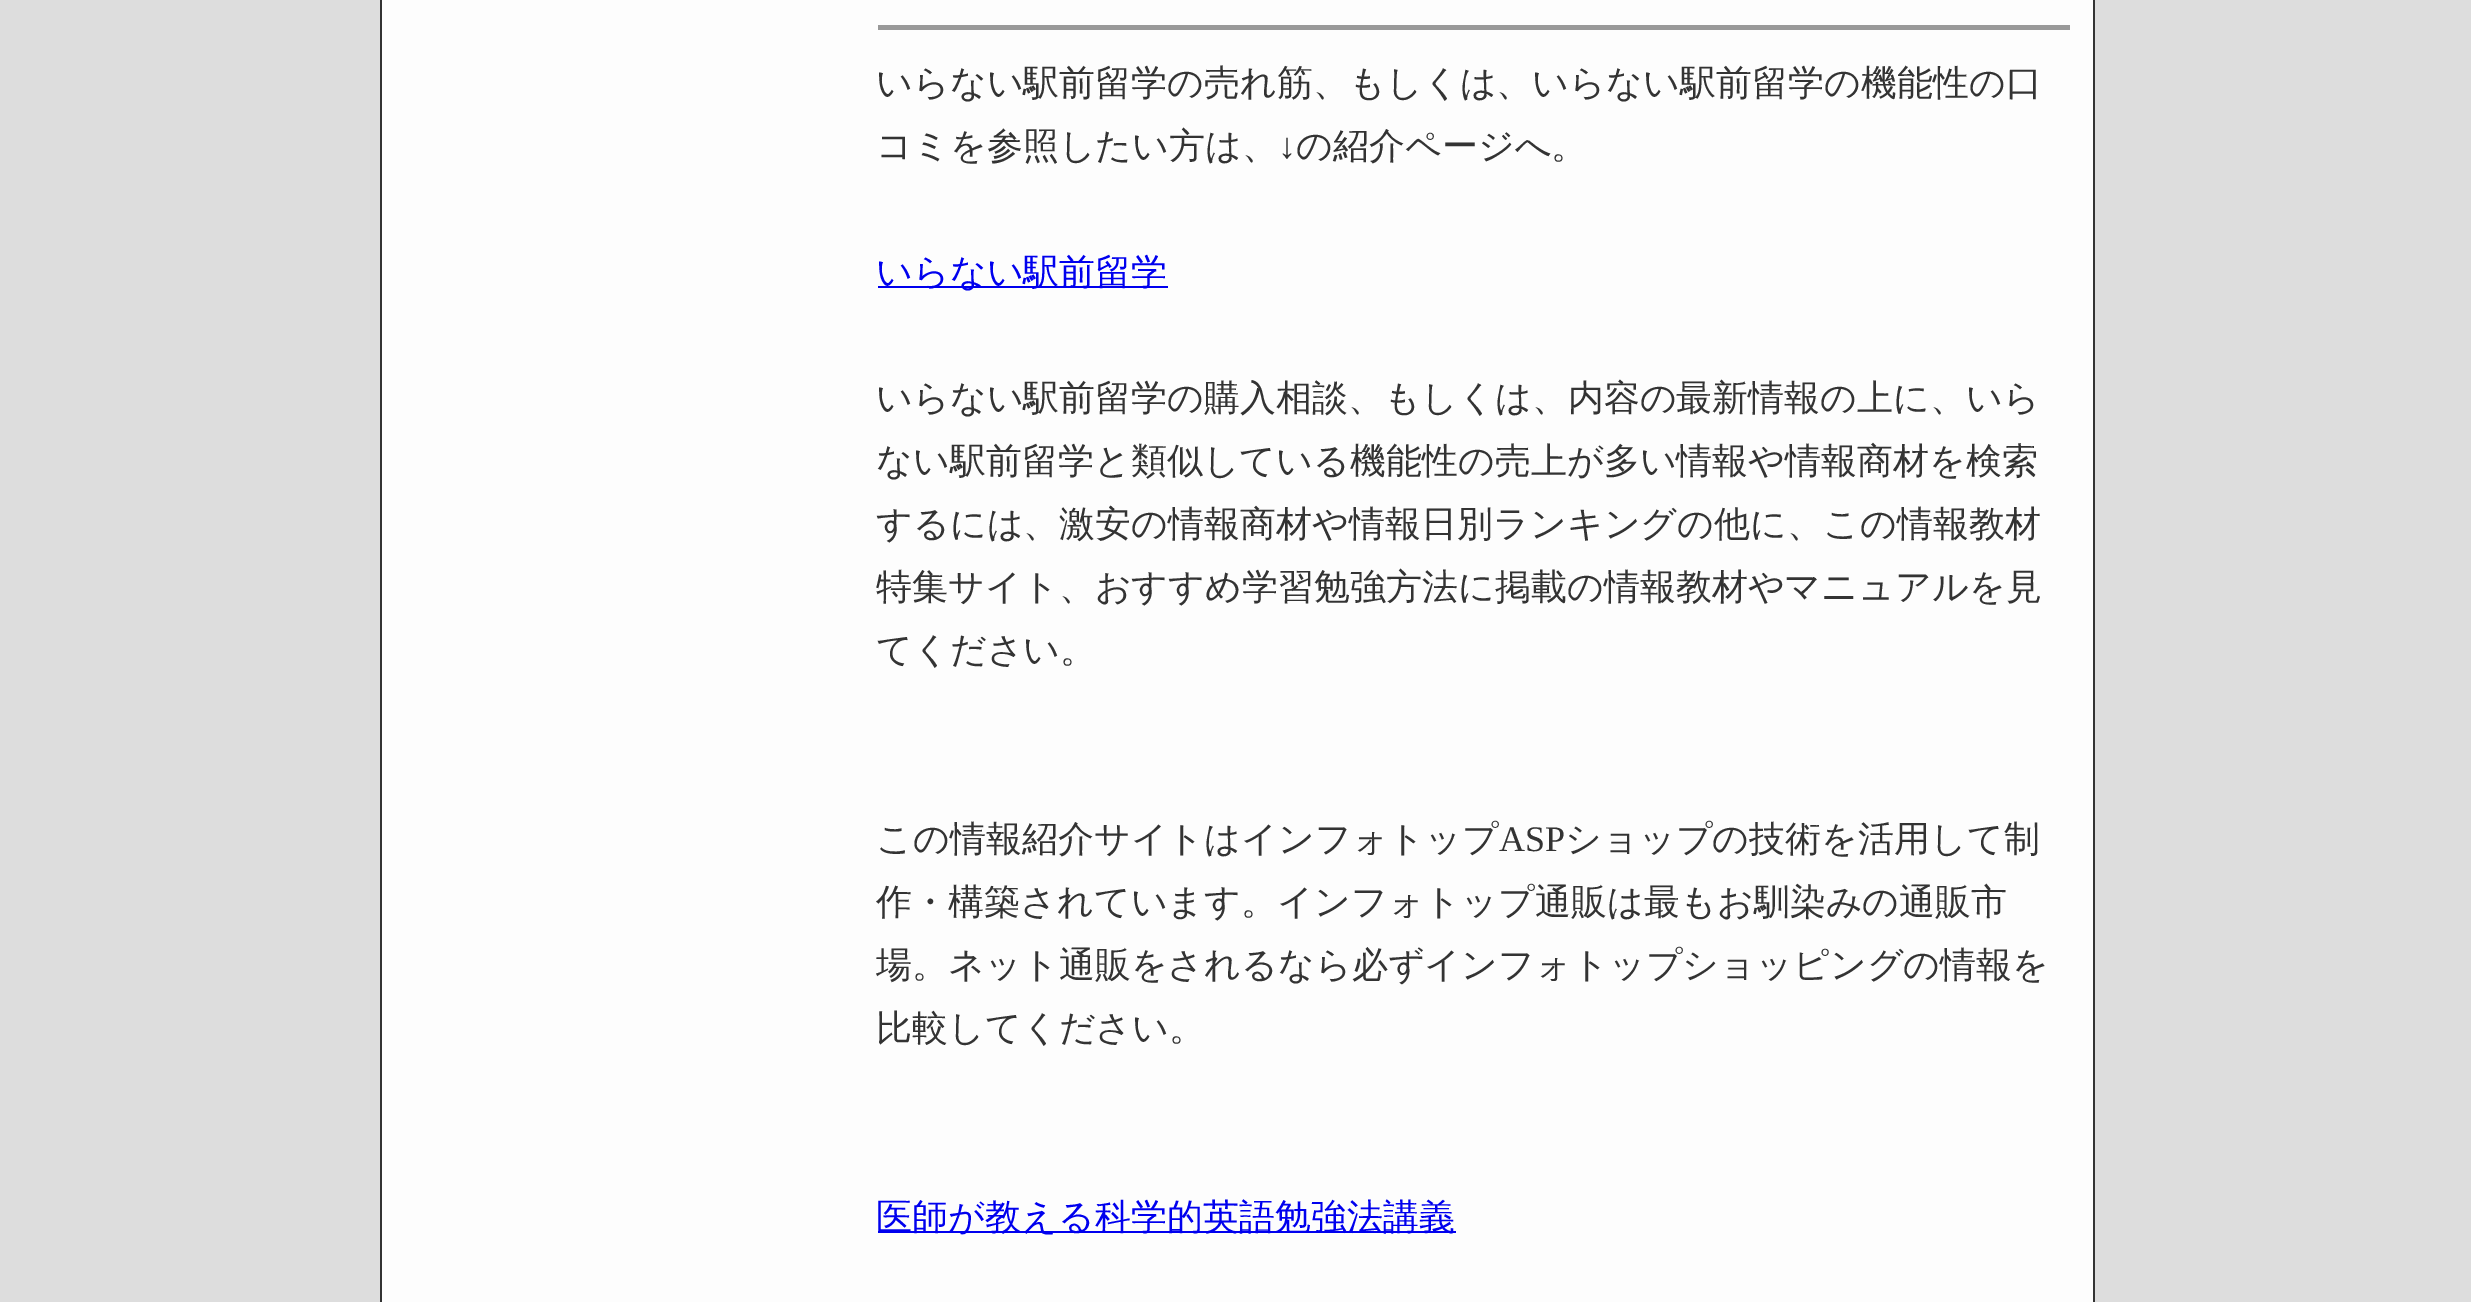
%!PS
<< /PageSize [2471 1302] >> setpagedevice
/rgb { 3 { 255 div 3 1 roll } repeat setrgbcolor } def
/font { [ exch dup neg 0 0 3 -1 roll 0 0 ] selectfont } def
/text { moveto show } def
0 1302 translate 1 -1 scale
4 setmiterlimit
221 221 221 rgb
0 0 2471 1302 rectfill
253 253 253 rgb
382 0 1711 1302 rectfill
51 51 51 rgb
2093 0 2 1302 rectfill
380 0 2 1302 rectfill
153 153 153 rgb
878 25 1192 5 rectfill
0 0 238 rgb
878 286 290 2 rectfill
878 1231 578 2 rectfill
/WenQuanYiZenHei-Medium 36 font
51 51 51 rgb
(いらない駅前留学の売れ筋、もしくは、いらない駅前留学の機能性の口) 876 95 text
(コミを参照したい方は、) 876 158 text
/LiberationSerif-Regular 36 font
(↓) 1278 158 text
/WenQuanYiZenHei-Medium 36 font
(の紹介ページへ。) 1296 158 text
0 0 238 rgb
(いらない駅前留学) 876 284 text
51 51 51 rgb
(いらない駅前留学の購入相談、もしくは、内容の最新情報の上に、いら) 876 410 text
(ない駅前留学と類似している機能性の売上が多い情報や情報商材を検索) 876 473 text
(するには、激安の情報商材や情報日別ランキングの他に、この情報教材) 876 536 text
(特集サイト、おすすめ学習勉強方法に掲載の情報教材やマニュアルを見) 876 599 text
(てください。) 876 662 text
(この情報紹介サイトはインフォトップ) 876 851 text
/LiberationSerif-Regular 36 font
(ASP) 1499 851 text
/WenQuanYiZenHei-Medium 36 font
(ショップの技術を活用して制) 1565 851 text
(作・構築されています。インフォトップ通販は最もお馴染みの通販市) 876 914 text
(場。ネット通販をされるなら必ずインフォトップショッピングの情報を) 876 977 text
(比較してください。) 876 1040 text
0 0 238 rgb
(医師が教える科学的英語勉強法講義) 876 1229 text
showpage
